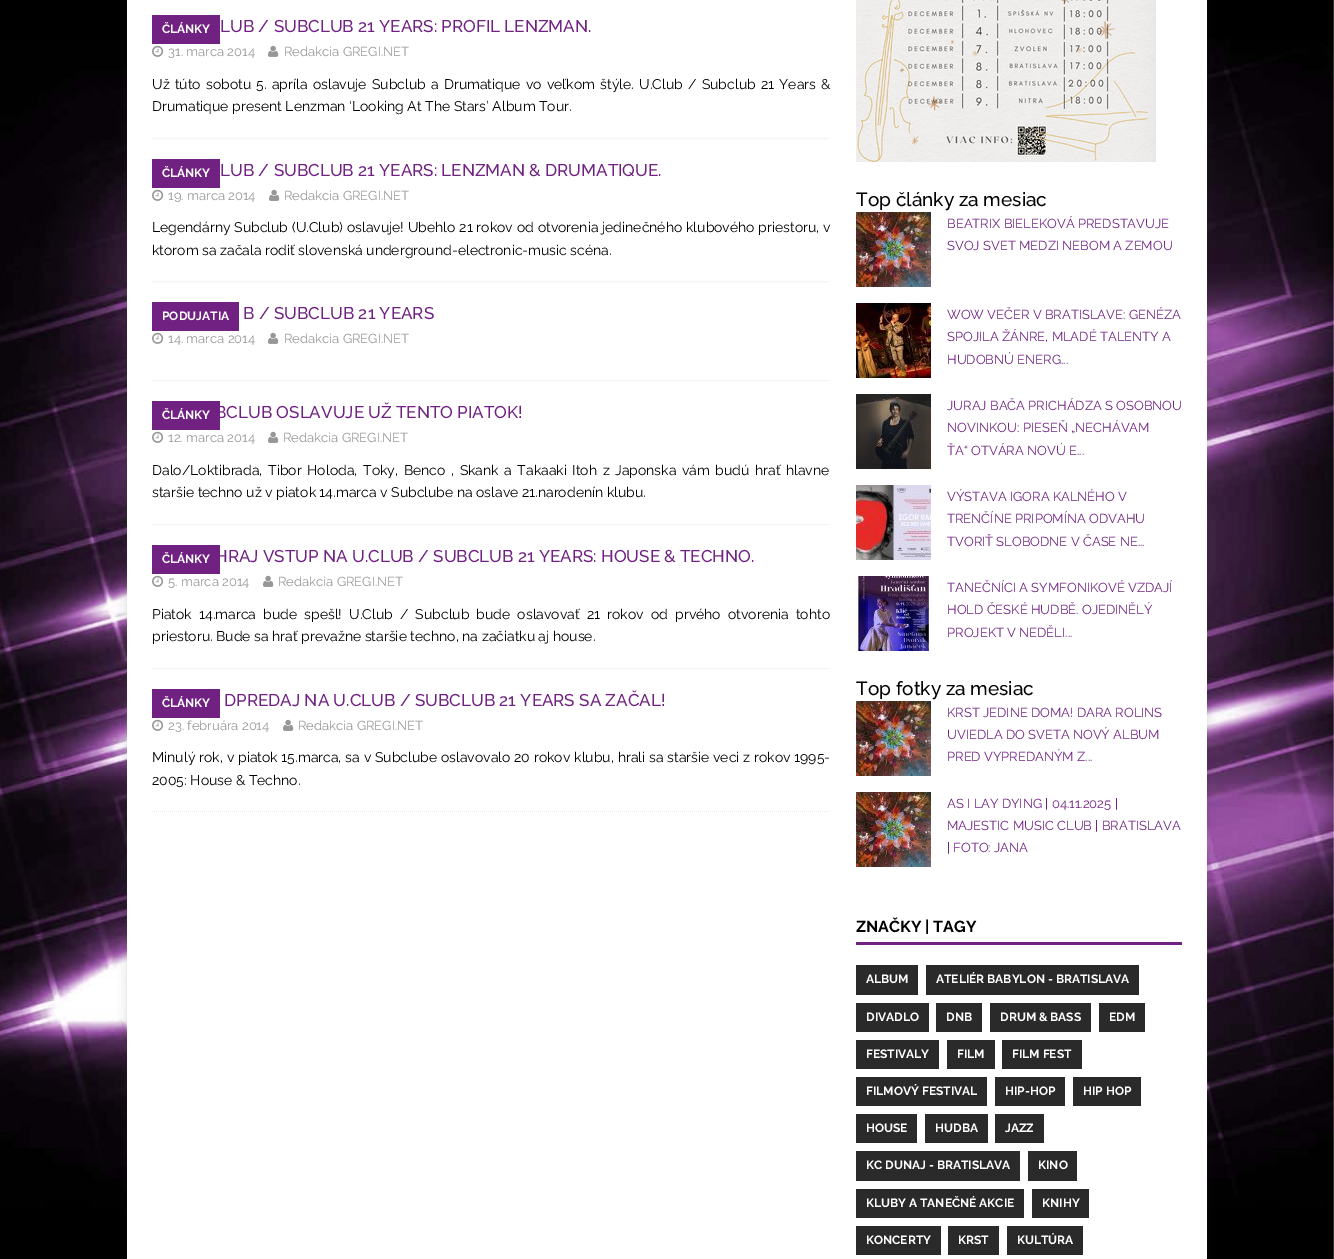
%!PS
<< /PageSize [1334 1259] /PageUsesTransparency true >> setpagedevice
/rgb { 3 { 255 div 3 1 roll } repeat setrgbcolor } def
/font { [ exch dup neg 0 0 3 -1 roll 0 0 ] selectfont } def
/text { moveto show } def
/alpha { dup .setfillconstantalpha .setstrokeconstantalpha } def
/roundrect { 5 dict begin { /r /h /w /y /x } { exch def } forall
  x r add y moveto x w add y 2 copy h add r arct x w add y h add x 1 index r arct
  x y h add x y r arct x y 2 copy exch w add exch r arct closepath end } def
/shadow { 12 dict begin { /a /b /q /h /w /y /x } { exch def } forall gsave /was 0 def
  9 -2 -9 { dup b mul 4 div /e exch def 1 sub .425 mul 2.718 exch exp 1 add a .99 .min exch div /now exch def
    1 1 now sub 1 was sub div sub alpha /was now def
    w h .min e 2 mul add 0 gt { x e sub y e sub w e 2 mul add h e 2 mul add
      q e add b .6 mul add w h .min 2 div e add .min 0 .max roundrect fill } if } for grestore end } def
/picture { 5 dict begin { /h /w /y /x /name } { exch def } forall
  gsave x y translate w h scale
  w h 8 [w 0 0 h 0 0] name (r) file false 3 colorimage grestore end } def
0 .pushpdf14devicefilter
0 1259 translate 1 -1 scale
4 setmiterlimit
255 255 255 rgb
0 0 1334 1259 rectfill
(img_01.rgb) 0 0 1334 1259 picture
50 50 50 rgb
127 -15 1080 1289 0 5 0.17 shadow
255 255 255 rgb
127 0 1080 1259 rectfill
235 235 235 rgb
[1 1] 0 setdash
152 138.5 moveto 678 0 rlineto stroke
(img_02.rgb) 152 45 12 12 picture
(img_03.rgb) 268 45 11 12 picture
112 33 129 rgb
152 15 68 29 rectfill
235 235 235 rgb
152 281.5 moveto 678 0 rlineto stroke
(img_02.rgb) 152 189 12 12 picture
(img_03.rgb) 269 189 11 12 picture
112 33 129 rgb
152 159 68 29 rectfill
235 235 235 rgb
152 380.5 moveto 678 0 rlineto stroke
(img_02.rgb) 152 332 12 12 picture
(img_03.rgb) 268 332 11 12 picture
112 33 129 rgb
152 302 87 29 rectfill
235 235 235 rgb
152 524.5 moveto 678 0 rlineto stroke
(img_02.rgb) 152 431 12 12 picture
(img_03.rgb) 268 431 11 12 picture
112 33 129 rgb
152 401 68 29 rectfill
235 235 235 rgb
152 668.5 moveto 678 0 rlineto stroke
(img_02.rgb) 152 575 12 12 picture
(img_03.rgb) 263 575 11 12 picture
112 33 129 rgb
152 545 68 29 rectfill
235 235 235 rgb
152 811.5 moveto 678 0 rlineto stroke
(img_02.rgb) 152 719 12 12 picture
(img_03.rgb) 283 719 11 12 picture
112 33 129 rgb
152 689 68 29 rectfill
(img_04.rgb) 856 0 300 162 picture
(img_05.rgb) 856 212 75 75 picture
(img_06.rgb) 856 303 75 75 picture
(img_07.rgb) 856 394 75 75 picture
(img_08.rgb) 856 485 75 75 picture
(img_09.rgb) 856 576 75 75 picture
(img_05.rgb) 856 701 75 75 picture
(img_05.rgb) 856 792 75 75 picture
856 942 326 3 rectfill
42 42 42 rgb
856 965 62 30 rectfill
926 965 213 30 rectfill
856 1003 73 29 rectfill
936 1003 46 29 rectfill
990 1003 101 29 rectfill
1099 1003 46 29 rectfill
856 1040 83 29 rectfill
947 1040 48 29 rectfill
1002 1040 80 29 rectfill
856 1077 131 29 rectfill
995 1077 70 29 rectfill
1073 1077 68 29 rectfill
856 1114 61 29 rectfill
925 1114 63 29 rectfill
995 1114 49 29 rectfill
856 1151 164 30 rectfill
1028 1151 49 30 rectfill
856 1189 168 29 rectfill
1032 1189 57 29 rectfill
856 1226 85 29 rectfill
948 1226 51 29 rectfill
1007 1226 76 29 rectfill
/Raleway-Medium 17 font
112 33 129 rgb
(LUB / SUBCLUB 21 YEARS: PROFIL LENZMAN.) 220 32 text
/Raleway-Regular 13 font
151 151 151 rgb
(31. marca 2014) 168 56 text
(Redakcia GREGI.NET) 284 56 text
/Raleway-Regular 14 font
0 0 0 rgb
152 89 moveto 1.7 0 32 (Už túto sobotu 5. apríla oslavuje Subclub a Drumatique vo veľkom štýle. U.Club / Subclub 21 Years &) widthshow
(Drumatique present Lenzman ‘Looking At The Stars’ Album Tour.) 152 111 text
/Raleway-Bold 12 font
255 255 255 rgb
(ČLÁNKY) 162 33 text
/Raleway-Medium 17 font
112 33 129 rgb
(LUB / SUBCLUB 21 YEARS: LENZMAN & DRUMATIQUE.) 220 176 text
/Raleway-Regular 13 font
151 151 151 rgb
(19. marca 2014) 168 200 text
(Redakcia GREGI.NET) 284 200 text
/Raleway-Regular 14 font
0 0 0 rgb
152 232 moveto 0.25 0 32 (Legendárny Subclub \(U.Club\) oslavuje! Ubehlo 21 rokov od otvorenia jedinečného klubového priestoru, v) widthshow
(ktorom sa začala rodiť slovenská underground-electronic-music scéna.) 152 255 text
/Raleway-Bold 12 font
255 255 255 rgb
(ČLÁNKY) 162 177 text
/Raleway-Medium 17 font
112 33 129 rgb
(B / SUBCLUB 21 YEARS) 243 319 text
/Raleway-Regular 13 font
151 151 151 rgb
(14. marca 2014) 168 343 text
(Redakcia GREGI.NET) 284 343 text
/Raleway-Bold 12 font
255 255 255 rgb
(PODUJATIA) 162 320 text
/Raleway-Medium 17 font
112 33 129 rgb
(BCLUB OSLAVUJE UŽ TENTO PIATOK!) 215 418 text
/Raleway-Regular 13 font
151 151 151 rgb
(12. marca 2014) 168 442 text
(Redakcia GREGI.NET) 283 442 text
/Raleway-Regular 14 font
0 0 0 rgb
152 475 moveto 2 0 32 (Dalo/Loktibrada, Tibor Holoda, Toky, Benco , Skank a Takaaki Itoh z Japonska vám budú hrať hlavne) widthshow
(staršie techno už v piatok 14.marca v Subclube na oslave 21.narodenín klubu.) 152 497 text
/Raleway-Bold 12 font
255 255 255 rgb
(ČLÁNKY) 162 419 text
/Raleway-Medium 17 font
112 33 129 rgb
(HRAJ VSTUP NA U.CLUB / SUBCLUB 21 YEARS: HOUSE & TECHNO.) 215 562 text
/Raleway-Regular 13 font
151 151 151 rgb
(5. marca 2014) 168 586 text
(Redakcia GREGI.NET) 278 586 text
/Raleway-Regular 14 font
0 0 0 rgb
152 619 moveto 3.6 0 32 (Piatok 14.marca bude spešl! U.Club / Subclub bude oslavovať 21 rokov od prvého otvorenia tohto) widthshow
(priestoru. Bude sa hrať prevažne staršie techno, na začiatku aj house.) 152 641 text
/Raleway-Bold 12 font
255 255 255 rgb
(ČLÁNKY) 162 563 text
/Raleway-Medium 17 font
112 33 129 rgb
(DPREDAJ NA U.CLUB / SUBCLUB 21 YEARS SA ZAČAL!) 224 706 text
/Raleway-Regular 13 font
151 151 151 rgb
(23. februára 2014) 168 730 text
(Redakcia GREGI.NET) 298 730 text
/Raleway-Regular 14 font
0 0 0 rgb
152 762 moveto 0.25 0 32 (Minulý rok, v piatok 15.marca, sa v Subclube oslavovalo 20 rokov klubu, hrali sa staršie veci z rokov 1995-) widthshow
(2005: House & Techno.) 152 785 text
/Raleway-Bold 12 font
255 255 255 rgb
(ČLÁNKY) 162 707 text
/Raleway-Medium 19 font
0 0 0 rgb
(Top články za mesiac) 856 206 text
/Raleway-Regular 13 font
112 33 129 rgb
(BEATRIX BIELEKOVÁ PREDSTAVUJE) 947 228 text
(SVOJ SVET MEDZI NEBOM A ZEMOU) 947 250 text
(WOW VEČER V BRATISLAVE: GENÉZA) 947 319 text
(SPOJILA ŽÁNRE, MLADÉ TALENTY A) 947 341 text
(HUDOBNÚ ENERG...) 947 364 text
(JURAJ BAČA PRICHÁDZA S OSOBNOU) 947 410 text
(NOVINKOU: PIESEŇ „NECHÁVAM) 947 432 text
(ŤA“ OTVÁRA NOVÚ E...) 947 455 text
(VÝSTAVA IGORA KALNÉHO V) 947 501 text
(TRENČÍNE PRIPOMÍNA ODVAHU) 947 523 text
(TVORIŤ SLOBODNE V ČASE NE...) 947 546 text
(TANEČNÍCI A SYMFONIKOVÉ VZDAJÍ) 947 592 text
(HOLD ČESKÉ HUDBĚ. OJEDINĚLÝ) 947 614 text
(PROJEKT V NEDĚLI...) 947 637 text
/Raleway-Medium 19 font
0 0 0 rgb
(Top fotky za mesiac) 856 695 text
/Raleway-Regular 13 font
112 33 129 rgb
(KRST JEDINE DOMA! DARA ROLINS) 947 717 text
(UVIEDLA DO SVETA NOVÝ ALBUM) 947 739 text
(PRED VYPREDANÝM Z...) 947 761 text
(AS I LAY DYING | 04.11.2025 |) 947 808 text
(MAJESTIC MUSIC CLUB | BRATISLAVA) 947 830 text
(| FOTO: JANA) 947 852 text
/Raleway-Bold 16 font
0 0 0 rgb
(ZNAČKY | TAGY) 856 932 text
/Raleway-Bold 12 font
255 255 255 rgb
(ALBUM) 866 983 text
(ATELIÉR BABYLON - BRATISLAVA) 936 983 text
(DIVADLO) 866 1021 text
(DNB) 946 1021 text
(DRUM & BASS) 1000 1021 text
(EDM) 1109 1021 text
(FESTIVALY) 866 1058 text
(FILM) 957 1058 text
(FILM FEST) 1012 1058 text
(FILMOVÝ FESTIVAL) 866 1095 text
(HIP-HOP) 1005 1095 text
(HIP HOP) 1083 1095 text
(HOUSE) 866 1132 text
(HUDBA) 935 1132 text
(JAZZ) 1005 1132 text
(KC DUNAJ - BRATISLAVA) 866 1169 text
(KINO) 1038 1169 text
(KLUBY A TANEČNÉ AKCIE) 866 1207 text
(KNIHY) 1042 1207 text
(KONCERTY) 866 1244 text
(KRST) 958 1244 text
(KULTÚRA) 1017 1244 text
.poppdf14devicefilter showpage
